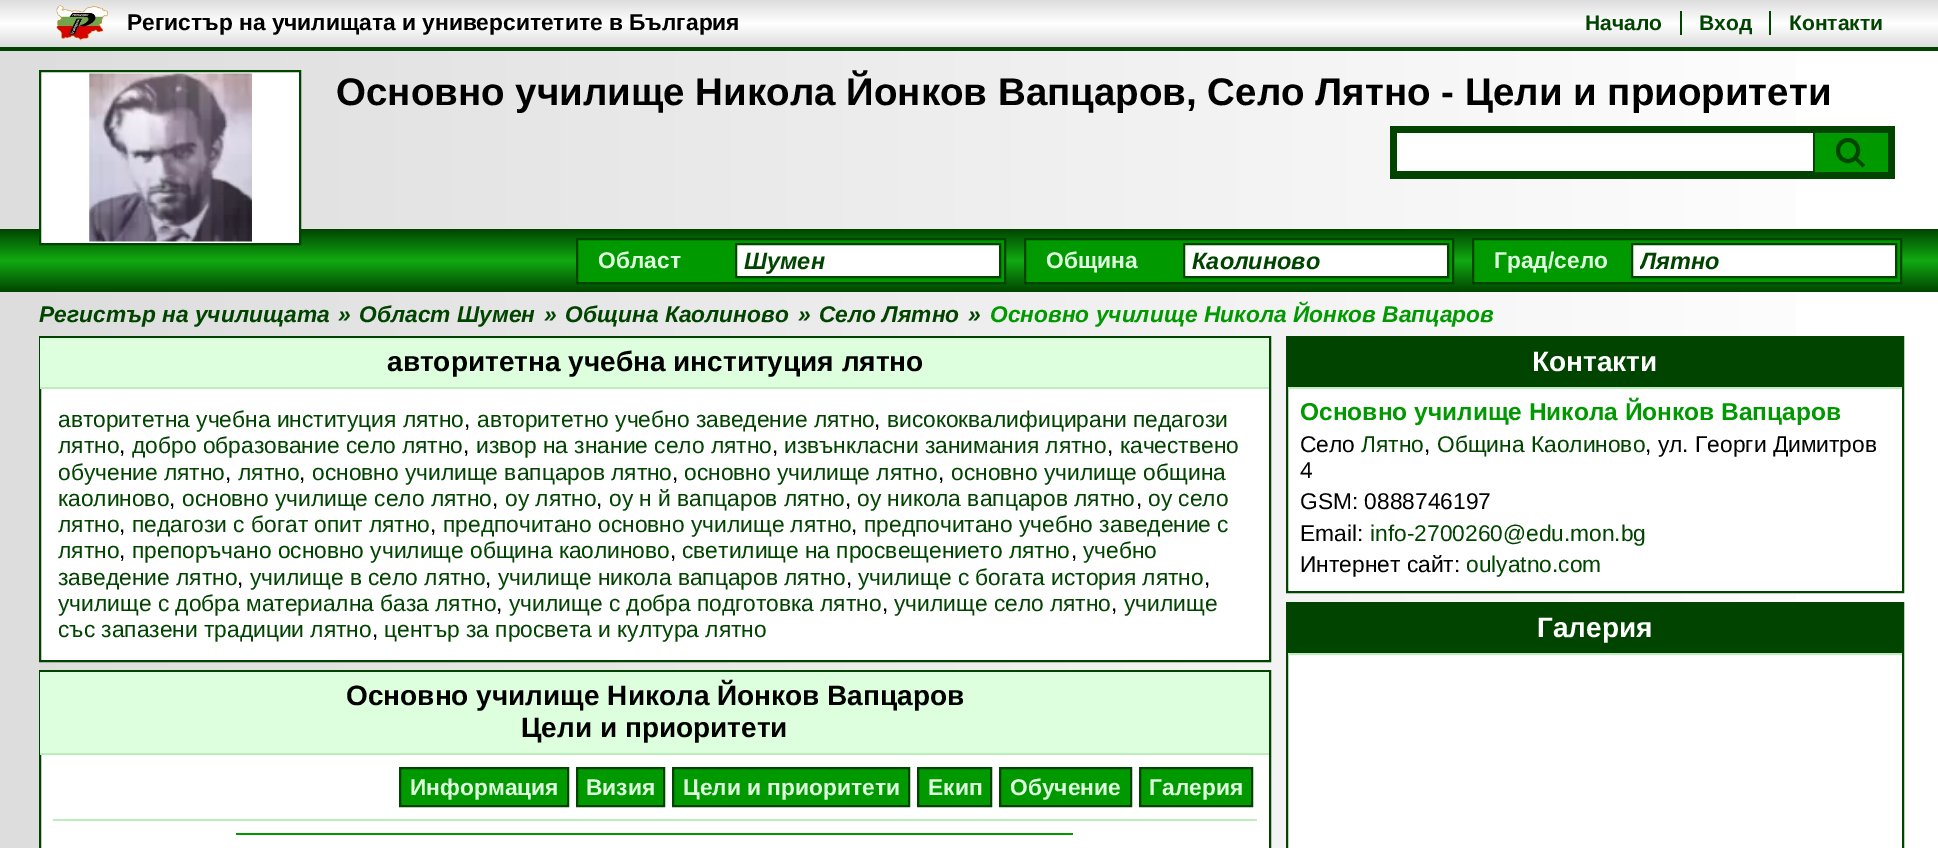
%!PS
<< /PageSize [1938 848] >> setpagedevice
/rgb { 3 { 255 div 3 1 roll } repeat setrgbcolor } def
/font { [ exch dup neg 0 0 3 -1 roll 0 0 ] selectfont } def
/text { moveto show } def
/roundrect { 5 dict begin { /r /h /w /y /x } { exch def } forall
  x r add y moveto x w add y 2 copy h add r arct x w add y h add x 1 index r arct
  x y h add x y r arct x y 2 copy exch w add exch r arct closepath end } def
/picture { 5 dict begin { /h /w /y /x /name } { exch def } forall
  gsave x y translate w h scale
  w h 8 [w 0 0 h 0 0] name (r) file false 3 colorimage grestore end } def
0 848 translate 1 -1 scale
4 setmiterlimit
255 255 255 rgb
0 0 1938 848 rectfill
gsave 0 51 moveto 1796 0 rlineto 0 797 rlineto -1796 0 rlineto closepath clip newpath
<< /ShadingType 2 /ColorSpace /DeviceRGB /Coords [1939 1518 0 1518] /Extend [true true] /Function << /FunctionType 2 /Domain [0 1] /C0 [1 1 1] /C1 [0.867 0.867 0.867] /N 1 >> >> shfill grestore
gsave 0 0 moveto 1938 0 rlineto 0 47 rlineto -1938 0 rlineto closepath clip newpath
<< /ShadingType 2 /ColorSpace /DeviceRGB /Coords [970 47 970 0] /Extend [true true] /Function << /FunctionType 3 /Domain [0 1] /Functions [<< /FunctionType 2 /Domain [0 1] /C0 [0.867 0.867 0.867] /C1 [1 1 1] /N 1 >> << /FunctionType 2 /Domain [0 1] /C0 [1 1 1] /C1 [0.867 0.867 0.867] /N 1 >>] /Bounds [0.5] /Encode [0 1 0 1] >> >> shfill grestore
0 68 0 rgb
0 47 1938 4 rectfill
(img_01.rgb) 56 5 52 36 picture
1680 11 2 24 rectfill
1769 11 2 24 rectfill
gsave 0 229 moveto 1938 0 rlineto 0 63 rlineto -1938 0 rlineto closepath clip newpath
<< /ShadingType 2 /ColorSpace /DeviceRGB /Coords [970 292 970 229] /Extend [true true] /Function << /FunctionType 3 /Domain [0 1] /Functions [<< /FunctionType 2 /Domain [0 1] /C0 [0 0.267 0] /C1 [0.067 0.667 0.067] /N 1 >> << /FunctionType 2 /Domain [0 1] /C0 [0.067 0.667 0.067] /C1 [0 0.267 0] /N 1 >>] /Bounds [0.5] /Encode [0 1 0 1] >> >> shfill grestore
255 255 255 rgb
40 71 moveto 260 0 rlineto 0 173 rlineto -260 0 rlineto closepath gsave fill grestore
0 68 0 rgb
2 setlinewidth
stroke
(img_02.rgb) 89 73 163 169 picture
1390 126 505 53 rectfill
255 255 255 rgb
1397 133 416 38 rectfill
0 153 0 rgb
1815 133 73 39 rectfill
0 68 0 rgb
4 setlinewidth
1838 140 20 21 10 roundrect stroke
1857.5 158 moveto 7.5 7 rlineto -2.5 2.5 rlineto -7 -7 rlineto closepath fill
0 153 0 rgb
577 239 moveto 428 0 rlineto 0 44 rlineto -428 0 rlineto closepath gsave fill grestore
0 68 0 rgb
2 setlinewidth
stroke
255 255 255 rgb
736 244 moveto 264 0 rlineto 0 33 rlineto -264 0 rlineto closepath gsave fill grestore
0 68 0 rgb
stroke
0 153 0 rgb
1025 239 moveto 428 0 rlineto 0 44 rlineto -428 0 rlineto closepath gsave fill grestore
0 68 0 rgb
stroke
255 255 255 rgb
1184 244 moveto 264 0 rlineto 0 33 rlineto -264 0 rlineto closepath gsave fill grestore
0 68 0 rgb
stroke
0 153 0 rgb
1473 239 moveto 428 0 rlineto 0 44 rlineto -428 0 rlineto closepath gsave fill grestore
0 68 0 rgb
stroke
255 255 255 rgb
1632 244 moveto 264 0 rlineto 0 33 rlineto -264 0 rlineto closepath gsave fill grestore
0 68 0 rgb
stroke
255 255 255 rgb
41 389 1228 271 rectfill
0 68 0 rgb
40 337 1230 324 rectstroke
221 255 221 rgb
40 338 1229 49 rectfill
187 238 187 rgb
40 387 1229 2 rectfill
255 255 255 rgb
41 755 1228 93 rectfill
0 68 0 rgb
40 671 1230 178 rectstroke
221 255 221 rgb
40 672 1229 81 rectfill
187 238 187 rgb
40 753 1229 2 rectfill
53 819 1204 2 rectfill
0 153 0 rgb
400 768 moveto 168 0 rlineto 0 38 rlineto -168 0 rlineto closepath gsave fill grestore
0 68 0 rgb
stroke
0 153 0 rgb
577 768 moveto 87 0 rlineto 0 38 rlineto -87 0 rlineto closepath gsave fill grestore
0 68 0 rgb
stroke
0 153 0 rgb
673 768 moveto 236 0 rlineto 0 38 rlineto -236 0 rlineto closepath gsave fill grestore
0 68 0 rgb
stroke
0 153 0 rgb
918 768 moveto 73 0 rlineto 0 38 rlineto -73 0 rlineto closepath gsave fill grestore
0 68 0 rgb
stroke
0 153 0 rgb
1000 768 moveto 131 0 rlineto 0 38 rlineto -131 0 rlineto closepath gsave fill grestore
0 68 0 rgb
stroke
0 153 0 rgb
1140 768 moveto 112 0 rlineto 0 38 rlineto -112 0 rlineto closepath gsave fill grestore
0 68 0 rgb
stroke
0 153 0 rgb
236 833 837 2 rectfill
255 255 255 rgb
1288 389 508 202 rectfill
0 68 0 rgb
1287 337 616 255 rectstroke
1288 338 614 49 rectfill
187 238 187 rgb
1288 387 614 2 rectfill
255 255 255 rgb
1288 655 508 193 rectfill
0 68 0 rgb
1287 603 616 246 rectstroke
1288 604 614 49 rectfill
187 238 187 rgb
1288 653 614 2 rectfill
/LiberationSans-Bold 22.75 font
0 0 0 rgb
(Регистър на училищата и университетите в България) 127 30 text
/LiberationSans-Bold 21 font
0 68 0 rgb
(Начало) 1585 30 text
(Вход) 1699 30 text
(Контакти) 1789 30 text
/LiberationSans-Bold 38.5 font
0 0 0 rgb
(Основно училище Никола Йонков Вапцаров, Село Лятно - Цели и приоритети) 336 105 text
/LiberationSans-Bold 22.75 font
221 255 221 rgb
(Област) 598 268 text
/LiberationSans-BoldItalic 23.5 font
0 68 0 rgb
(Шумен) 744 269 text
/LiberationSans-Bold 22.75 font
221 255 221 rgb
(Община) 1046 268 text
/LiberationSans-BoldItalic 23.5 font
0 68 0 rgb
(Каолиново) 1192 269 text
/LiberationSans-Bold 22.75 font
221 255 221 rgb
(Град/село) 1494 268 text
gsave
1640 249 248 26 rectclip
/LiberationSans-BoldItalic 23.5 font
0 68 0 rgb
(Лятно) 1640 269 text
grestore
/LiberationSans-BoldItalic 22.75 font
0 68 0 rgb
(Регистър на училищата) 39 322 text
(») 338 322 text
(Област Шумен) 359 322 text
(») 544 322 text
(Община Каолиново) 565 322 text
(») 798 322 text
(Село Лятно) 819 322 text
(») 968 322 text
0 153 0 rgb
(Основно училище Никола Йонков Вапцаров) 990 322 text
/LiberationSans-Bold 28 font
0 0 0 rgb
(авторитетна учебна институция лятно) 387 371 text
/LiberationSans-Regular 22.75 font
0 68 0 rgb
(авторитетна учебна институция лятно) 58 427 text
0 0 0 rgb
(,) 464 427 text
0 68 0 rgb
(авторитетно учебно заведение лятно) 477 427 text
0 0 0 rgb
(,) 874 427 text
0 68 0 rgb
(висококвалифицирани педагози) 887 427 text
(лятно) 58 453 text
0 0 0 rgb
(,) 119 453 text
0 68 0 rgb
(добро образование село лятно) 132 453 text
0 0 0 rgb
(,) 463 453 text
0 68 0 rgb
(извор на знание село лятно) 476 453 text
0 0 0 rgb
(,) 772 453 text
0 68 0 rgb
(извънкласни занимания лятно) 784 453 text
0 0 0 rgb
(,) 1107 453 text
0 68 0 rgb
(качествено) 1120 453 text
(обучение лятно) 58 480 text
0 0 0 rgb
(,) 225 480 text
0 68 0 rgb
(лятно) 238 480 text
0 0 0 rgb
(,) 299 480 text
0 68 0 rgb
(основно училище вапцаров лятно) 312 480 text
0 0 0 rgb
(,) 672 480 text
0 68 0 rgb
(основно училище лятно) 684 480 text
0 0 0 rgb
(,) 938 480 text
0 68 0 rgb
(основно училище община) 951 480 text
(каолиново) 58 506 text
0 0 0 rgb
(,) 169 506 text
0 68 0 rgb
(основно училище село лятно) 182 506 text
0 0 0 rgb
(,) 492 506 text
0 68 0 rgb
(оу лятно) 505 506 text
0 0 0 rgb
(,) 596 506 text
0 68 0 rgb
(оу н й вапцаров лятно) 609 506 text
0 0 0 rgb
(,) 845 506 text
0 68 0 rgb
(оу никола вапцаров лятно) 857 506 text
0 0 0 rgb
(,) 1136 506 text
0 68 0 rgb
(оу село) 1148 506 text
(лятно) 58 532 text
0 0 0 rgb
(,) 119 532 text
0 68 0 rgb
(педагози с богат опит лятно) 132 532 text
0 0 0 rgb
(,) 430 532 text
0 68 0 rgb
(предпочитано основно училище лятно) 443 532 text
0 0 0 rgb
(,) 851 532 text
0 68 0 rgb
(предпочитано учебно заведение с) 864 532 text
(лятно) 58 558 text
0 0 0 rgb
(,) 119 558 text
0 68 0 rgb
(препоръчано основно училище община каолиново) 132 558 text
0 0 0 rgb
(,) 670 558 text
0 68 0 rgb
(светилище на просвещението лятно) 682 558 text
0 0 0 rgb
(,) 1071 558 text
0 68 0 rgb
(учебно) 1083 558 text
(заведение лятно) 58 585 text
0 0 0 rgb
(,) 237 585 text
0 68 0 rgb
(училище в село лятно) 250 585 text
0 0 0 rgb
(,) 485 585 text
0 68 0 rgb
(училище никола вапцаров лятно) 498 585 text
0 0 0 rgb
(,) 846 585 text
0 68 0 rgb
(училище с богата история лятно) 858 585 text
0 0 0 rgb
(,) 1204 585 text
0 68 0 rgb
(училище с добра материална база лятно) 58 611 text
0 0 0 rgb
(,) 496 611 text
0 68 0 rgb
(училище с добра подготовка лятно) 509 611 text
0 0 0 rgb
(,) 882 611 text
0 68 0 rgb
(училище село лятно) 894 611 text
0 0 0 rgb
(,) 1111 611 text
0 68 0 rgb
(училище) 1124 611 text
(със запазени традиции лятно) 58 637 text
0 0 0 rgb
(,) 372 637 text
0 68 0 rgb
(център за просвета и култура лятно) 384 637 text
/LiberationSans-Bold 28 font
0 0 0 rgb
(Основно училище Никола Йонков Вапцаров) 346 705 text
(Цели и приоритети) 521 737 text
/LiberationSans-Bold 22.75 font
221 255 221 rgb
(Информация) 410 795 text
(Визия) 586 795 text
(Цели и приоритети) 683 795 text
(Екип) 928 795 text
(Обучение) 1010 795 text
(Галерия) 1149 795 text
/LiberationSans-Bold 28 font
255 255 255 rgb
(Контакти) 1532 371 text
/LiberationSans-Bold 24.5 font
0 153 0 rgb
(Основно училище Никола Йонков Вапцаров) 1300 420 text
/LiberationSans-Regular 22.75 font
0 0 0 rgb
(Село) 1300 452 text
0 68 0 rgb
(Лятно) 1361 452 text
0 0 0 rgb
(,) 1424 452 text
0 68 0 rgb
(Община Каолиново) 1437 452 text
0 0 0 rgb
(, ул. Георги Димитров) 1645 452 text
(4) 1300 478 text
(GSM: 0888746197) 1300 509 text
(Email:) 1300 541 text
0 68 0 rgb
(info-2700260@edu.mon.bg) 1370 541 text
0 0 0 rgb
(Интернет сайт:) 1300 572 text
0 68 0 rgb
(oulyatno.com) 1466 572 text
/LiberationSans-Bold 28 font
255 255 255 rgb
(Галерия) 1537 637 text
showpage
